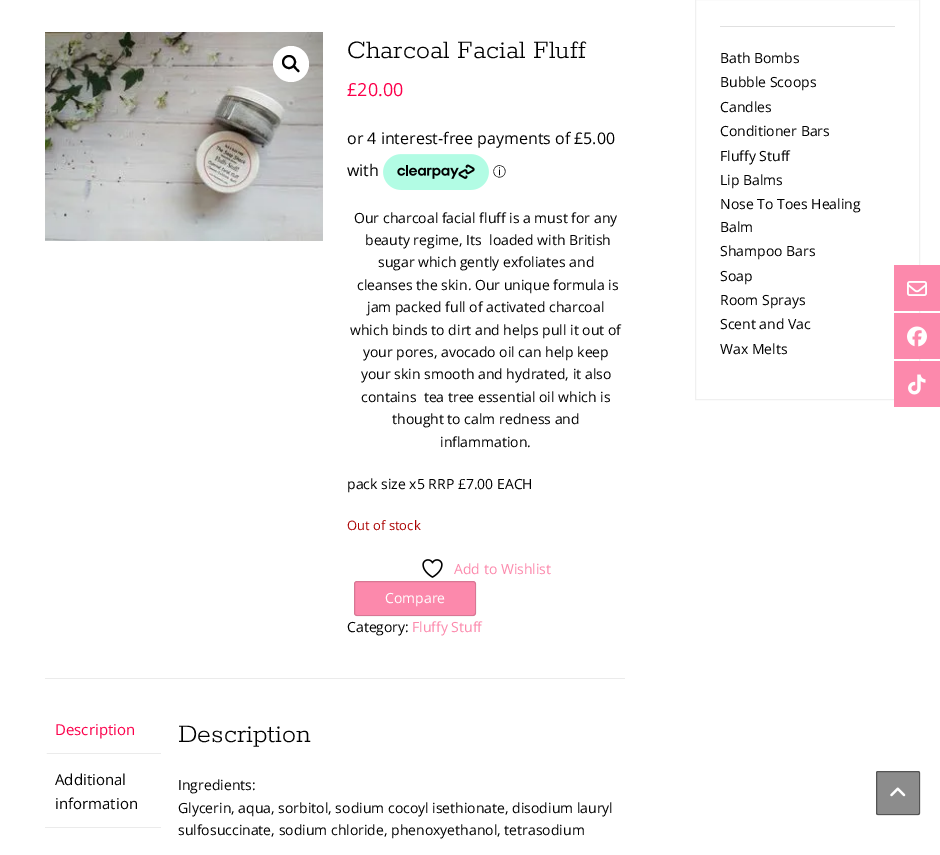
%!PS
<< /PageSize [940 855] /PageUsesTransparency true >> setpagedevice
/rgb { 3 { 255 div 3 1 roll } repeat setrgbcolor } def
/font { [ exch dup neg 0 0 3 -1 roll 0 0 ] selectfont } def
/text { moveto show } def
/alpha { dup .setfillconstantalpha .setstrokeconstantalpha } def
/circle { newpath 0 360 arc closepath } def
/roundrect { 5 dict begin { /r /h /w /y /x } { exch def } forall
  x r add y moveto x w add y 2 copy h add r arct x w add y h add x 1 index r arct
  x y h add x y r arct x y 2 copy exch w add exch r arct closepath end } def
/picture { 5 dict begin { /h /w /y /x /name } { exch def } forall
  gsave x y translate w h scale
  w h 8 [w 0 0 h 0 0] name (r) file false 3 colorimage grestore end } def
0 .pushpdf14devicefilter
0 855 translate 1 -1 scale
4 setmiterlimit
255 255 255 rgb
0 0 940 855 rectfill
(img_01.rgb) 45 32 278 209 picture
291 64 18 circle fill
0 0 0 rgb
2 setlinewidth
289 62 6 circle stroke
293.5 66 moveto 1.5 -1 3 1.5 3.5 2.5 rcurveto 0.5 0.5 3.5 2 2 3.5 rcurveto -1 1 -2.5 -1.5 -3.5 -2.5 rcurveto -0.5 -0.5 -3 -2 -2 -3.5 rcurveto closepath fill
(img_02.rgb) 383 154 106 36 picture
(img_03.rgb) 422 559 21 19 picture
252 137 172 rgb
354 581 122 35 3 roundrect fill
0.14 alpha
0 0 0 rgb
1 setlinewidth
354.5 581.5 121 34 2.5 roundrect stroke
1 alpha
235 235 235 rgb
45 678 580 1 rectfill
45 753 116 1 rectfill
gsave
45 704 116 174 rectclip
255 255 255 rgb
42 754 moveto 0 2 rlineto 3.5 0 5 -1.5 5 -5 rcurveto -2 0 rlineto -0.5 1.5 -1.5 2.5 -3 3 rcurveto closepath fill
grestore
45 827 116 1 rectfill
240 240 240 rgb
695.5 -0.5 224 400 rectstroke
224 224 224 rgb
720 26 175 1 rectfill
252 137 172 rgb
894 265 46 46 rectfill
(img_04.rgb) 907 281 20 15 picture
894 313 46 46 rectfill
(img_05.rgb) 907 326 20 21 picture
894 361 46 46 rectfill
(img_06.rgb) 908 374 18 21 picture
140 140 140 rgb
876 771 44 44 2 roundrect fill
0.4 alpha
0 0 0 rgb
876.5 771.5 43 43 1.5 roundrect stroke
1 alpha
(img_07.rgb) 890 787 16 10 picture
/Rokkitt-Light 28 font
(Charcoal Facial Fluff) 347 58 text
/OpenSans-Regular 18 font
252 0 75 rgb
(£20.00) 347 96 text
/OpenSans-Regular 16 font
0 0 0 rgb
(or 4 interest-free payments of £5.00) 347 144 text
(with) 347 176 text
/WenQuanYiZenHei-Medium 13 font
(ⓘ) 493 176 text
/OpenSans-Regular 14 font
(Our charcoal facial fluff is a must for any) 354 223 text
(beauty regime, Its  loaded with British) 365 245 text
(sugar which gently exfoliates and) 378 267 text
(cleanses the skin. Our unique formula is) 357 290 text
(jam packed full of activated charcoal) 367 312 text
(which binds to dirt and helps pull it out of) 350 335 text
(your pores, avocado oil can help keep) 363 357 text
(your skin smooth and hydrated, it also) 361 379 text
(contains  tea tree essential oil which is) 361 402 text
(thought to calm redness and) 392 424 text
(inflammation.) 440 447 text
(pack size x5 RRP £7.00 EACH) 347 489 text
/OpenSans-Regular 13 font
170 0 0 rgb
(Out of stock) 347 530 text
/OpenSans-Regular 14 font
252 137 172 rgb
(Add to Wishlist) 454 574 text
255 255 255 rgb
(Compare) 385 603 text
0 0 0 rgb
(Category:) 347 632 text
252 137 172 rgb
(Fluffy Stuff) 412 632 text
/OpenSans-Regular 15 font
252 0 75 rgb
(Description) 55 735 text
0 0 0 rgb
(Additional) 55 785 text
(information) 55 809 text
/Rokkitt-Light 28 font
(Description) 178 742 text
/OpenSans-Regular 14 font
(Ingredients:) 178 790 text
(Glycerin, aqua, sorbitol, sodium cocoyl isethionate, disodium lauryl) 178 813 text
(sulfosuccinate, sodium chloride, phenoxyethanol, tetrasodium) 178 835 text
(Bath Bombs) 720 63 text
(Bubble Scoops) 720 87 text
(Candles) 720 112 text
(Conditioner Bars) 720 136 text
(Fluffy Stuff) 720 161 text
(Lip Balms) 720 185 text
(Nose To Toes Healing) 720 209 text
(Balm) 720 232 text
(Shampoo Bars) 720 256 text
(Soap) 720 281 text
(Room Sprays) 720 305 text
(Scent and Vac) 720 329 text
(Wax Melts) 720 354 text
.poppdf14devicefilter showpage
